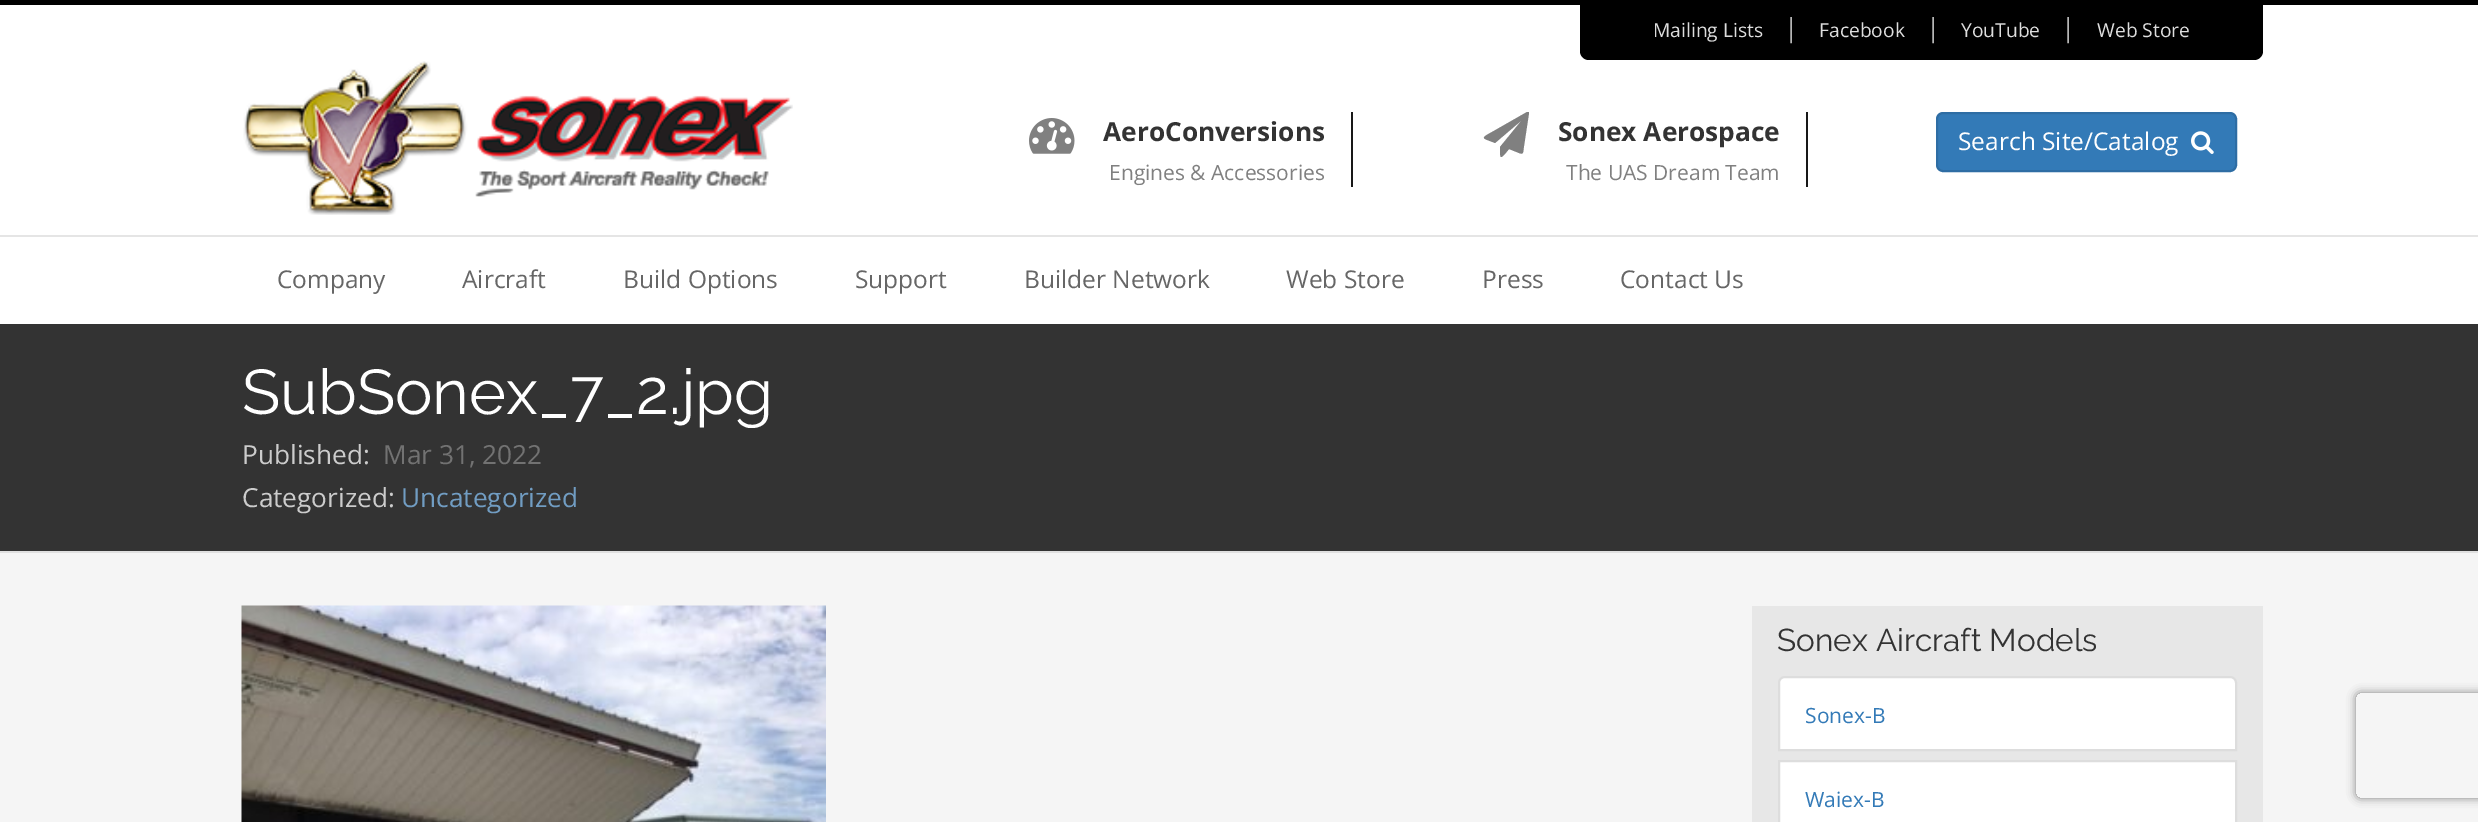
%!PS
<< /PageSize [2478 822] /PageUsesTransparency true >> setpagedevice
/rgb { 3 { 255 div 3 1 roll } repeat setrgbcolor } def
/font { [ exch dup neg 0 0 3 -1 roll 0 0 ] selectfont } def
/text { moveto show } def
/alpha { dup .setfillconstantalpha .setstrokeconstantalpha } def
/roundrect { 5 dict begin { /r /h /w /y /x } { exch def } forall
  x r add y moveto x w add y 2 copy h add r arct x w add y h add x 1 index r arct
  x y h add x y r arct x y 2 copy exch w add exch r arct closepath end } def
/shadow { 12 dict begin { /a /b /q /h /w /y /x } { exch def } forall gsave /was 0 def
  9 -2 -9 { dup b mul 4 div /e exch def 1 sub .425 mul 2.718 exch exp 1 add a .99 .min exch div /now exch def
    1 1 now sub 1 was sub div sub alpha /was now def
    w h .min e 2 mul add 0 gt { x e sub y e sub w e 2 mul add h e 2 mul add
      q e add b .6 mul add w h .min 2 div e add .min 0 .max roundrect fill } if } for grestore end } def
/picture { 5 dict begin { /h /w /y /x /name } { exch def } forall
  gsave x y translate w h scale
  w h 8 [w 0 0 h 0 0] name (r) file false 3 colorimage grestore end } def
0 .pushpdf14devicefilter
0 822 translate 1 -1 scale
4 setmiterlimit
255 255 255 rgb
0 0 2478 822 rectfill
0 0 0 rgb
0 0 2478 5 rectfill
229 229 229 rgb
0 235 2478 2 rectfill
0 0 0 rgb
1580 5 moveto 683 0 rlineto 0 46 rlineto 0 5 -4 9 -9 9 rcurveto -665 0 rlineto -5 0 -9 -4 -9 -9 rcurveto closepath fill
(img_01.rgb) 243 61 550 154 picture
24 24 24 rgb
1351 112 2 75 rectfill
(img_02.rgb) 1029 118 46 36 picture
1806 112 2 75 rectfill
128 128 128 rgb
1529 112 moveto 0 1 rlineto -5 33 rlineto -1 6 0 9 -5 7 rcurveto -10 -4 rlineto -9 11 -9 11 -9 -2 rcurveto 22 -27 rlineto -27 23 rlineto -12 -5 -16 -4 -3 -11 rcurveto 35 -20 rlineto closepath fill
51 122 183 rgb
1937 113 299 58 6 roundrect gsave fill grestore
46 109 164 rgb
2 setlinewidth
stroke
(img_03.rgb) 2191 131 23 23 picture
51 51 51 rgb
0 324 2478 227 rectfill
245 245 245 rgb
0 553 2478 269 rectfill
224 224 224 rgb
0 551 2478 2 rectfill
(img_04.rgb) 241 605 585 217 picture
231 231 231 rgb
1752 606 511 216 rectfill
255 255 255 rgb
1785 677 moveto 445 0 rlineto 3.5 0 6 2.5 6 6 rcurveto 0 67 rlineto -457 0 rlineto 0 -67 rlineto 0 -3.5 2.5 -6 6 -6 rcurveto closepath gsave fill grestore
221 221 221 rgb
stroke
255 255 255 rgb
1779 761 moveto 457 0 rlineto 0 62 rlineto -457 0 rlineto closepath gsave fill grestore
221 221 221 rgb
stroke
gsave
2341 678 moveto 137 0 rlineto 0 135 rlineto -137 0 rlineto closepath 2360 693 moveto 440 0 rlineto 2 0 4 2 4 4 rcurveto 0 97 rlineto 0 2 -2 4 -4 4 rcurveto -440 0 rlineto -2 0 -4 -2 -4 -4 rcurveto 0 -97 rlineto 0 -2 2 -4 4 -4 rcurveto closepath eoclip newpath
128 128 128 rgb
2356 693 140 105 4 4.5 1 shadow
grestore
/OpenSans-Regular 19.25 font
(Mailing Lists) 1653 37 text
/OpenSans-Regular 26.25 font
182 182 182 rgb
(|) 1784 37 text
/OpenSans-Regular 19.25 font
221 221 221 rgb
(Facebook) 1819 37 text
/OpenSans-Regular 26.25 font
182 182 182 rgb
(|) 1926 37 text
/OpenSans-Regular 19.25 font
221 221 221 rgb
(YouTube) 1961 37 text
/OpenSans-Regular 26.25 font
182 182 182 rgb
(|) 2061 37 text
/OpenSans-Regular 19.25 font
221 221 221 rgb
(Web Store) 2097 37 text
/OpenSans-Bold 26.25 font
51 51 51 rgb
(AeroConversions) 1103 141 text
/OpenSans-Regular 21 font
128 128 128 rgb
(Engines & Accessories) 1109 180 text
/OpenSans-Bold 26.25 font
51 51 51 rgb
(Sonex Aerospace) 1558 141 text
/OpenSans-Regular 21 font
128 128 128 rgb
(The UAS Dream Team) 1566 180 text
/OpenSans-Regular 24.5 font
255 255 255 rgb
(Search Site/Catalog) 1958 150 text
102 102 102 rgb
(Company) 277 288 text
(Aircraft) 462 288 text
(Build Options) 623 288 text
(Support) 855 288 text
(Builder Network) 1024 288 text
(Web Store) 1286 288 text
(Press) 1482 288 text
(Contact Us) 1620 288 text
/Raleway-Regular 63 font
255 255 255 rgb
(SubSonex_7_2.jpg) 242 414 text
/OpenSans-Regular 26.25 font
204 204 204 rgb
(Published:) 242 464 text
114 114 114 rgb
(Mar 31, 2022) 383 464 text
204 204 204 rgb
(Categorized:) 242 507 text
113 157 195 rgb
(Uncategorized) 401 507 text
/Raleway-Regular 31.5 font
51 51 51 rgb
(Sonex Aircraft Models) 1777 651 text
/OpenSans-Regular 21 font
51 122 183 rgb
(Sonex-B) 1805 723 text
(Waiex-B) 1805 807 text
.poppdf14devicefilter showpage
